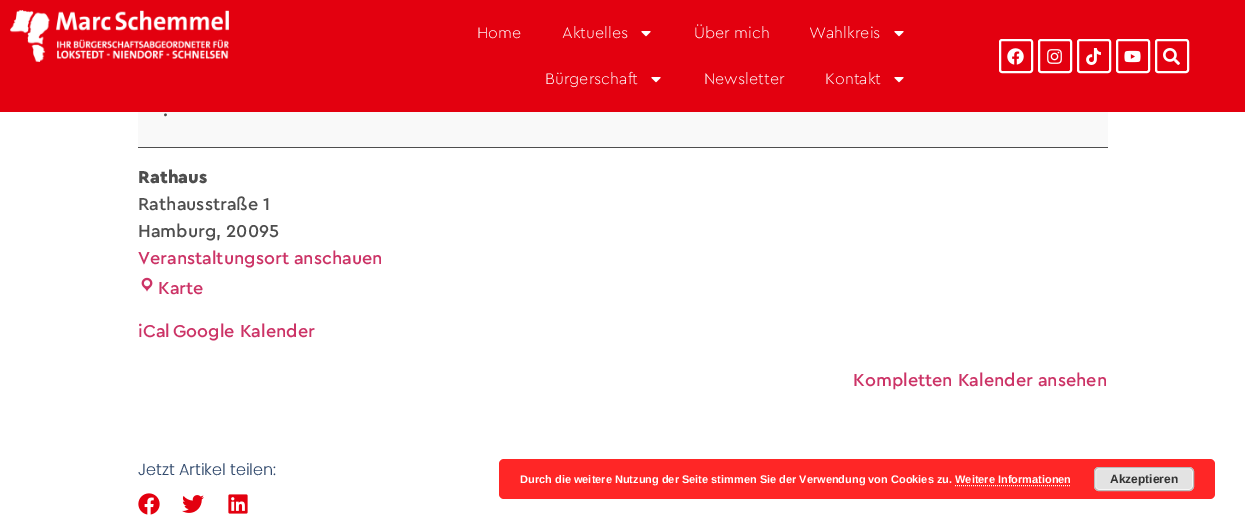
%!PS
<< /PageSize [1245 529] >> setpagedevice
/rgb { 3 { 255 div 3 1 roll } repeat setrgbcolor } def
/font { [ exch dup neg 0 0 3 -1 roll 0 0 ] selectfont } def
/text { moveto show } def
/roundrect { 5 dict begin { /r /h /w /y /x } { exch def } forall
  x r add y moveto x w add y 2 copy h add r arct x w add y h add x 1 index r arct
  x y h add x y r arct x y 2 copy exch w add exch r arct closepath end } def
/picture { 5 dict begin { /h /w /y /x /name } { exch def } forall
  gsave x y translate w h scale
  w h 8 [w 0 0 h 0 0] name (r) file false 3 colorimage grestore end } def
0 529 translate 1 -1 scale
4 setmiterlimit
255 255 255 rgb
0 0 1245 529 rectfill
227 0 15 rgb
0 0 1245 112 rectfill
(img_01.rgb) 10 10 219 52 picture
(img_02.rgb) 641 31 10 6 picture
(img_02.rgb) 894 31 10 6 picture
(img_02.rgb) 651 77 10 6 picture
(img_02.rgb) 894 77 10 6 picture
255 255 255 rgb
2 setlinewidth
1000 40 32 32 2 roundrect stroke
(img_03.rgb) 1007 48 17 17 picture
1039 40 32 32 2 roundrect stroke
(img_04.rgb) 1047 49 15 15 picture
1078 40 32 32 2 roundrect stroke
(img_05.rgb) 1086 48 15 17 picture
1117 40 32 32 2 roundrect stroke
(img_06.rgb) 1124 50 17 13 picture
1156 40 32 32 2 roundrect stroke
(img_07.rgb) 1163 48 17 17 picture
249 249 249 rgb
138 112 970 35 rectfill
78 78 78 rgb
138 147 970 1 rectfill
(img_08.rgb) 141 277 12 15 picture
(img_09.rgb) 138 493 22 22 picture
(img_10.rgb) 182 495 22 18 picture
(img_11.rgb) 228 494 20 20 picture
255 38 38 rgb
499 459 716 40 5 roundrect fill
227 227 227 rgb
1094 467 100 24 5 roundrect fill
246 246 246 rgb
1 setlinewidth
1095.5 468.5 97 21 3.5 roundrect stroke
187 187 187 rgb
1094.5 467.5 99 23 4.5 roundrect stroke
255 255 255 rgb
[1 1] 0 setdash
955 485.5 moveto 116 0 rlineto stroke
/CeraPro-Light 16 font
(Home) 477 38 text
(Aktuelles) 562 38 text
(Über mich) 694 38 text
(Wahlkreis) 809 38 text
(Bürgerschaft) 545 84 text
(Newsletter) 704 84 text
(Kontakt) 825 84 text
/CeraPro-Medium 18 font
78 78 78 rgb
(.) 163 116 text
/CeraPro-Black 18 font
(Rathaus) 138 183 text
/CeraPro-Medium 18 font
(Rathausstraße 1) 138 210 text
(Hamburg, 20095) 138 237 text
204 51 102 rgb
(Veranstaltungsort anschauen) 138 264 text
(Karte) 158 294 text
(iCal) 138 337 text
(Google Kalender) 173 337 text
(Kompletten Kalender ansehen) 853 386 text
/Poppins-Light 16 font
50 74 109 rgb
(Jetzt Artikel teilen:) 138 475 text
/LiberationSans-Bold 11 font
255 255 255 rgb
(Durch die weitere Nutzung der Seite stimmen Sie der Verwendung von Cookies zu. Weitere Informationen) 520 483 text
/LiberationSans-Bold 12 font
51 51 51 rgb
(Akzeptieren) 1110 483 text
showpage
